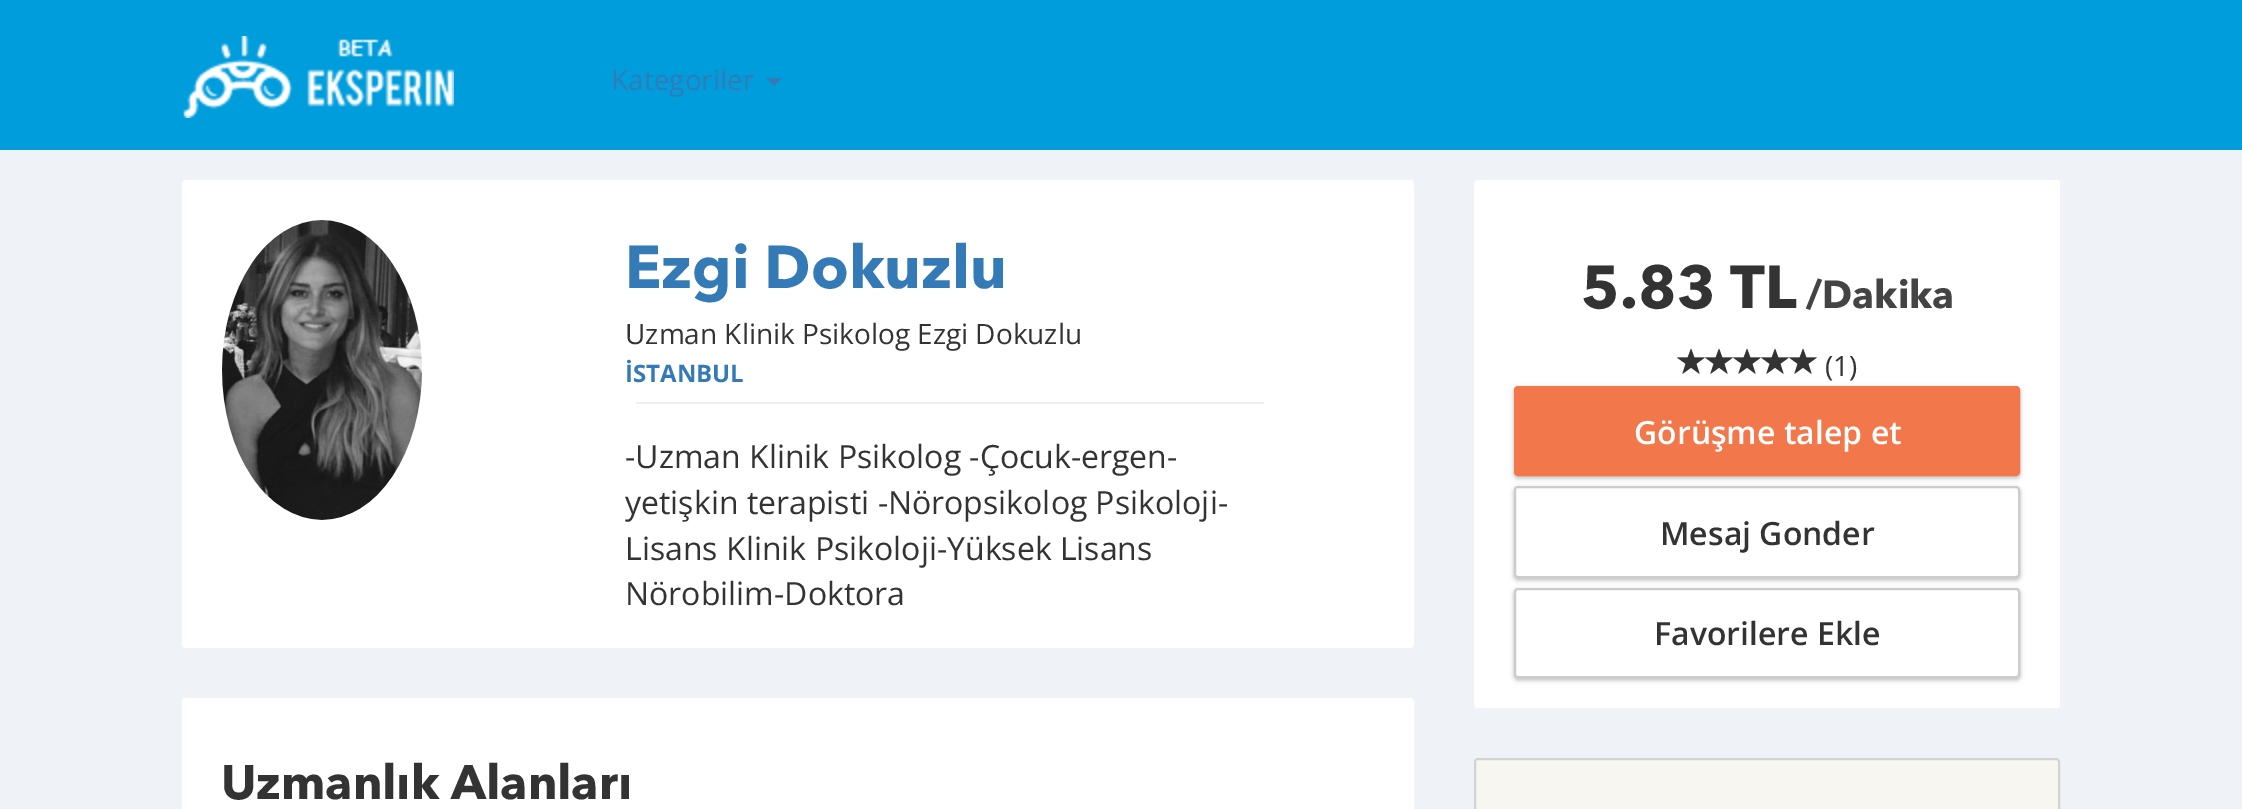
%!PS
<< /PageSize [2242 809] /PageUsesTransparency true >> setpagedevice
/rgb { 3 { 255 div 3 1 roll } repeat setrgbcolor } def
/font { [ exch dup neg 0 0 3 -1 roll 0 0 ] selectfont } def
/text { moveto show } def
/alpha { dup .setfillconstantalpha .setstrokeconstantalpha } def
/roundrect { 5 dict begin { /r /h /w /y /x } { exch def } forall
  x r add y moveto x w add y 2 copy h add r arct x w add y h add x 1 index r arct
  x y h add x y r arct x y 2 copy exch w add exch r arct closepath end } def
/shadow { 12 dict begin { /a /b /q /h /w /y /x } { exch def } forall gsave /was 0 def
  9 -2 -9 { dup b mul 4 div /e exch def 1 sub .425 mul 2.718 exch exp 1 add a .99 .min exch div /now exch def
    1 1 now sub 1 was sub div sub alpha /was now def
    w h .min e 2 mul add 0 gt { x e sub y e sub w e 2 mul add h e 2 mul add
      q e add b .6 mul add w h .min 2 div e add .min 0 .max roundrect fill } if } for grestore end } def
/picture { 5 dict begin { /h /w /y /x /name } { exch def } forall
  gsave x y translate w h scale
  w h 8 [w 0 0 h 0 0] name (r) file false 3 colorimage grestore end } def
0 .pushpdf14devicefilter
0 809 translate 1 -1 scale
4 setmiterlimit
239 243 248 rgb
0 0 2242 809 rectfill
0 157 220 rgb
0 0 2242 150 rectfill
(img_01.rgb) 183 36 271 82 picture
51 122 183 rgb
766 78 moveto 16 0 rlineto -8 8 rlineto closepath fill
255 255 255 rgb
182 180 1232 468 4 roundrect fill
(img_02.rgb) 222 220 200 300 picture
238 238 238 rgb
636 402 628 2 rectfill
255 255 255 rgb
182 698 1232 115 4 roundrect fill
1474 180 586 528 4 roundrect fill
(img_03.rgb) 1677 348 28 26 picture
(img_03.rgb) 1705 348 28 26 picture
(img_03.rgb) 1733 348 28 26 picture
(img_03.rgb) 1761 348 28 26 picture
(img_03.rgb) 1789 348 28 26 picture
0 0 0 rgb
1514 388 506 90 4 2 0.18 shadow
1514 388 506 90 4 3 0.1 shadow
242 120 75 rgb
1515 387 504 88 3 roundrect gsave fill grestore
2 setlinewidth
stroke
0 0 0 rgb
1514 488 506 92 4 2 0.18 shadow
1514 488 506 92 4 3 0.1 shadow
255 255 255 rgb
1515 487 504 90 3 roundrect gsave fill grestore
204 204 204 rgb
stroke
0 0 0 rgb
1514 590 506 90 4 2 0.18 shadow
1514 590 506 90 4 3 0.1 shadow
255 255 255 rgb
1515 589 504 88 3 roundrect gsave fill grestore
204 204 204 rgb
stroke
247 246 241 rgb
1475 759 584 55 3 roundrect gsave fill grestore
211 211 211 rgb
stroke
/OpenSans-Regular 28 font
51 122 183 rgb
(Kategoriler) 611 90 text
/AvenirNext-Bold 60 font
(Ezgi Dokuzlu) 625 288 text
/OpenSans-Regular 28 font
51 51 51 rgb
(Uzman Klinik Psikolog Ezgi Dokuzlu) 625 344 text
/OpenSans-Bold 24 font
51 122 183 rgb
(İSTANBUL) 625 382 text
/OpenSans-Regular 32 font
51 51 51 rgb
(-Uzman Klinik Psikolog -Çocuk-ergen-) 625 468 text
(yetişkin terapisti -Nöropsikolog Psikoloji-) 625 514 text
(Lisans Klinik Psikoloji-Yüksek Lisans) 625 560 text
(Nörobilim-Doktora) 625 605 text
/AvenirNext-Bold 48 font
(Uzmanlık Alanları) 221 799 text
/AvenirNext-Bold 60 font
(5.83 TL) 1581 308 text
/AvenirNext-Bold 39 font
68 68 68 rgb
(/Dakika) 1806 308 text
/OpenSans-Regular 28 font
51 51 51 rgb
(\(1\)) 1825 376 text
/OpenSans-SemiBold 32 font
255 255 255 rgb
(Görüşme talep et) 1634 444 text
51 51 51 rgb
(Mesaj Gonder) 1660 545 text
(Favorilere Ekle) 1654 645 text
.poppdf14devicefilter showpage
